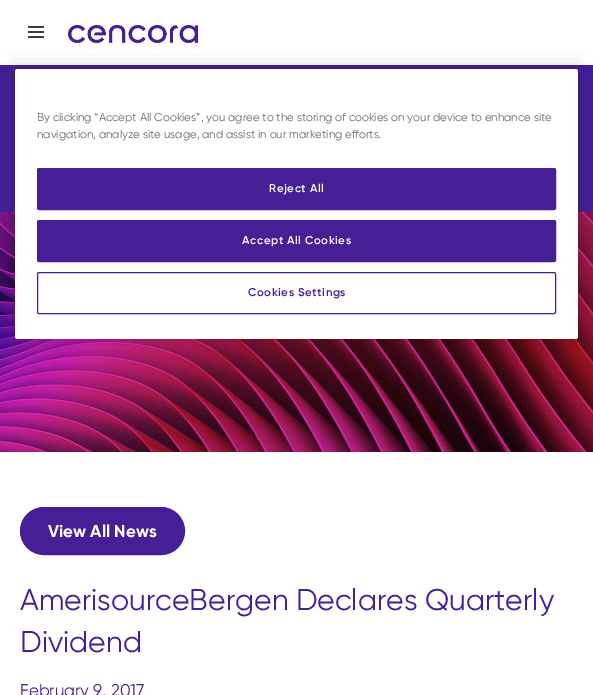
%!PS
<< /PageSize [593 695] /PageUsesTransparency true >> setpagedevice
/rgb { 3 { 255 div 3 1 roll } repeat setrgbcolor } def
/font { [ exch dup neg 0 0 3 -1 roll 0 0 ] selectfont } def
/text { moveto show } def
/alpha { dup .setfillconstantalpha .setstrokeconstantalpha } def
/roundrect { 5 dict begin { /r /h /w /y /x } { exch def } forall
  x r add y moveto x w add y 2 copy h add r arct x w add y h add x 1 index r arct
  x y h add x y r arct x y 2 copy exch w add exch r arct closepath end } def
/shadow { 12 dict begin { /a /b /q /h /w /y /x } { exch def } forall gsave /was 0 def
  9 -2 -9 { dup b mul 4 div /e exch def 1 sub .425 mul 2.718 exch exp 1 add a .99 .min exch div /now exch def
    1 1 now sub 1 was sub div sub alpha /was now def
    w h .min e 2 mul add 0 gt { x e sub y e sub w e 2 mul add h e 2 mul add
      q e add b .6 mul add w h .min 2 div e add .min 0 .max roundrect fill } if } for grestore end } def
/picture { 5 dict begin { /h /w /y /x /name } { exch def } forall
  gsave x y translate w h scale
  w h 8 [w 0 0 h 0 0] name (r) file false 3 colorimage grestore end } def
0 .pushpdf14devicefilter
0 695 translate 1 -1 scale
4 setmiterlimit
255 255 255 rgb
0 0 593 695 rectfill
(img_01.rgb) 68 25 130 18 picture
70 30 150 rgb
0 65 593 147 rectfill
(img_02.rgb) 0 212 593 240 picture
0 0 0 rgb
15 69 563 270 2.5 9 0.2 shadow
255 255 255 rgb
15 69 563 270 2.5 roundrect fill
70 30 150 rgb
37.5 168.5 518 41 1.5 roundrect gsave fill grestore
stroke
37.5 220.5 518 41 1.5 roundrect gsave fill grestore
stroke
37.5 272.5 518 41 1.5 roundrect stroke
59 59 59 rgb
28 26 16 2 1 roundrect fill
28 31 16 2 1 roundrect fill
28 36 16 2 1 roundrect fill
70 30 150 rgb
20.5 507.5 164 47 23.5 roundrect gsave fill grestore
stroke
/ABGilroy-Regular 11.4 font
105 105 105 rgb
(By clicking “Accept All Cookies”, you agree to the storing of cookies on your device to enhance site) 37 121 text
(navigation, analyze site usage, and assist in our marketing efforts.) 37 138 text
/ABGilroy-SemiBold 11.4 font
255 255 255 rgb
269 192 moveto 0.6 0 (Reject All) ashow
242 244 moveto 0.6 0 (Accept All Cookies) ashow
70 30 150 rgb
248 296 moveto 0.6 0 (Cookies Settings) ashow
/ABGilroy-Bold 17 font
255 255 255 rgb
(View All News) 48 537 text
/ABGilroy-Regular 30 font
70 30 150 rgb
(AmerisourceBergen Declares Quarterly) 20 610 text
(Dividend) 20 652 text
/ABGilroy-Regular 17 font
(February 9, 2017) 20 696 text
.poppdf14devicefilter showpage
